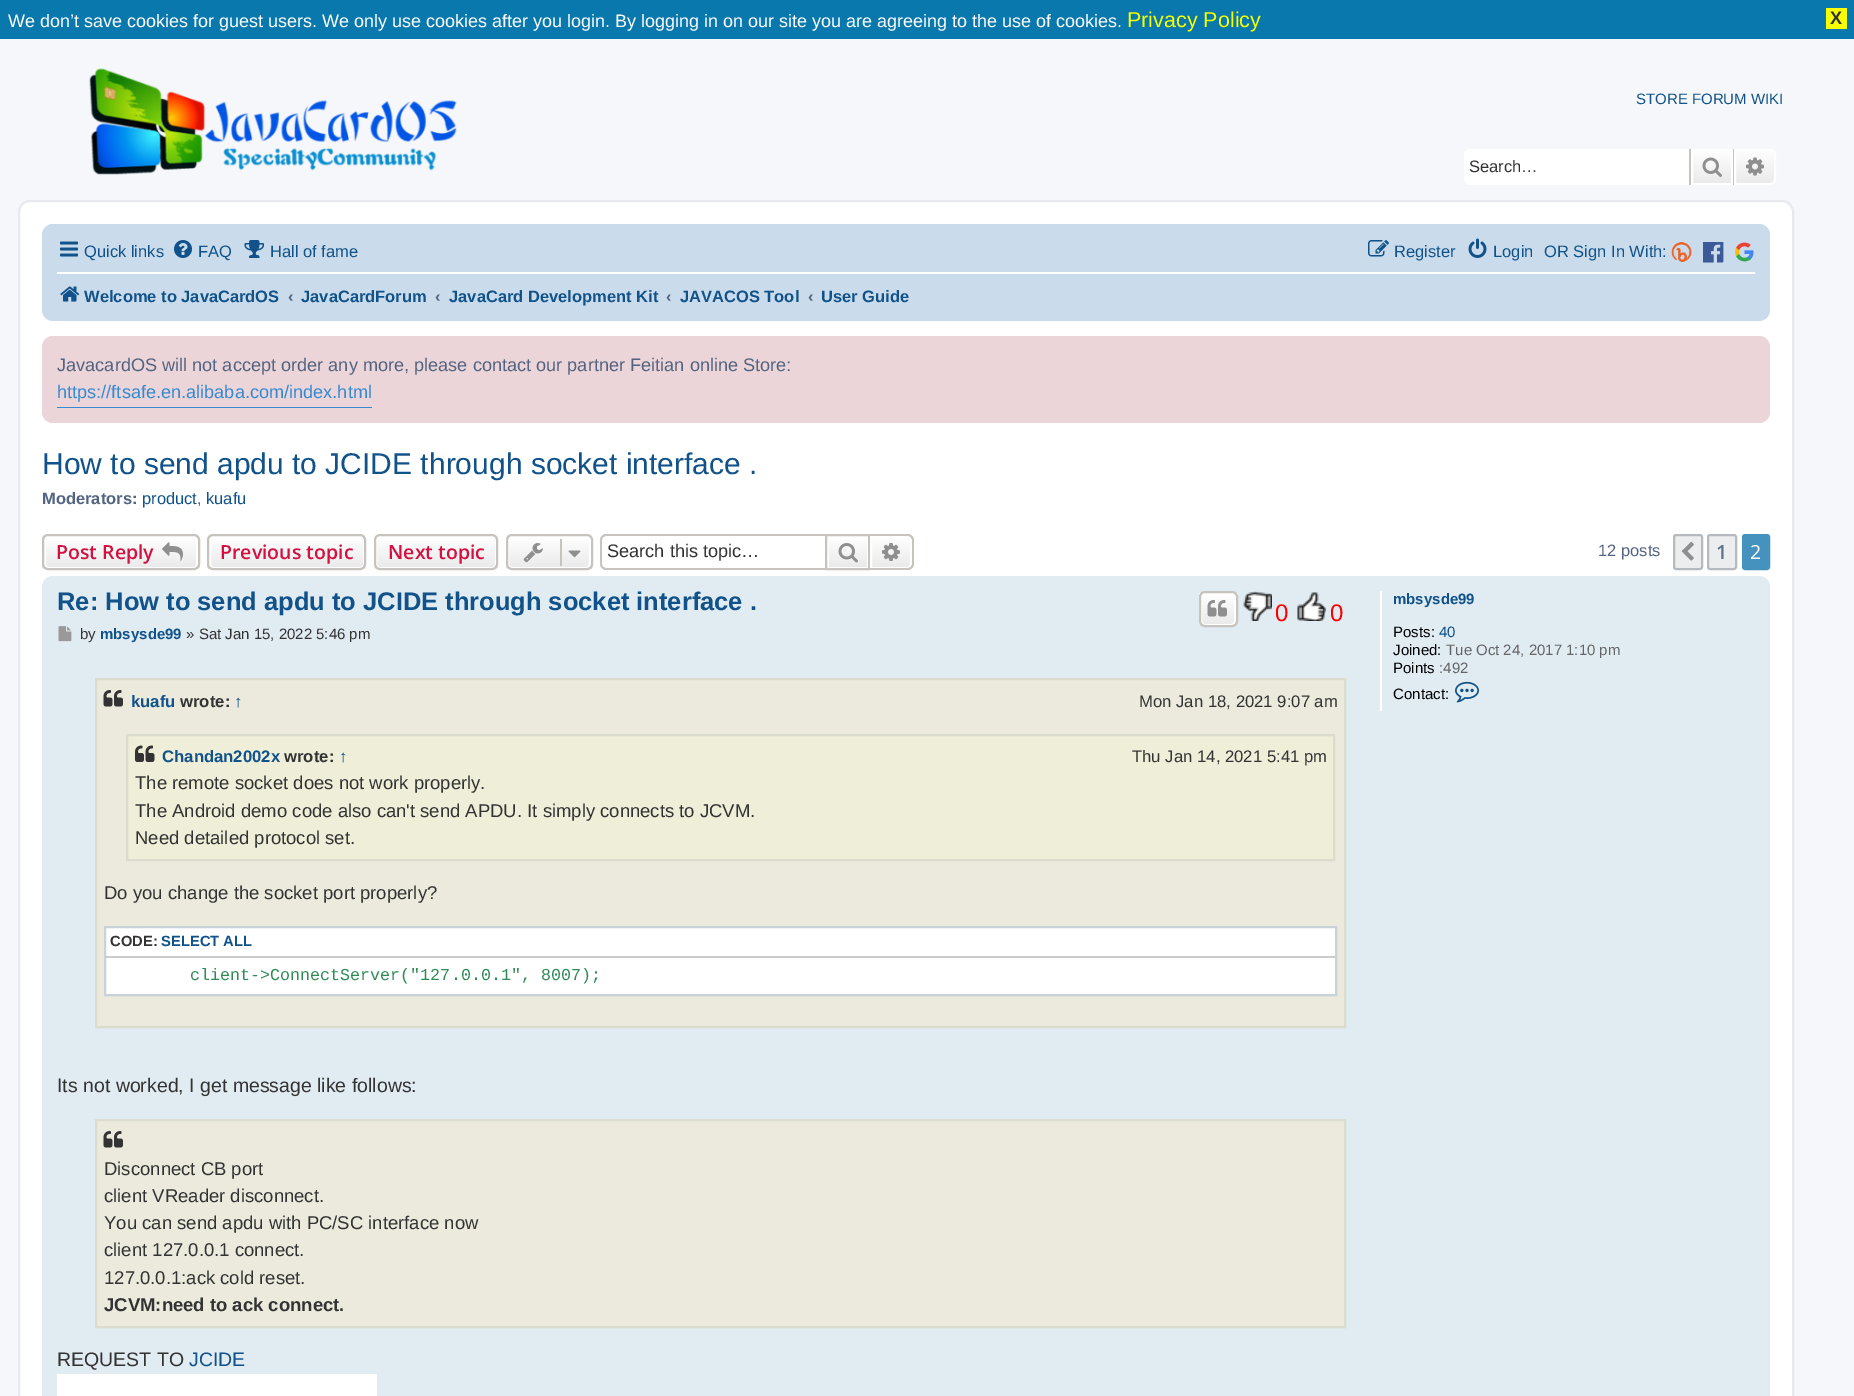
%!PS
<< /PageSize [1854 1396] >> setpagedevice
/rgb { 3 { 255 div 3 1 roll } repeat setrgbcolor } def
/font { [ exch dup neg 0 0 3 -1 roll 0 0 ] selectfont } def
/text { moveto show } def
/roundrect { 5 dict begin { /r /h /w /y /x } { exch def } forall
  x r add y moveto x w add y 2 copy h add r arct x w add y h add x 1 index r arct
  x y h add x y r arct x y 2 copy exch w add exch r arct closepath end } def
/picture { 5 dict begin { /h /w /y /x /name } { exch def } forall
  gsave x y translate w h scale
  w h 8 [w 0 0 h 0 0] name (r) file false 3 colorimage grestore end } def
0 1396 translate 1 -1 scale
4 setmiterlimit
245 247 250 rgb
0 0 1854 1396 rectfill
9 120 172 rgb
0 0 1854 39 rectfill
247 255 0 rgb
1826 8 21 21 rectfill
(img_01.rgb) 89 68 368 107 picture
255 255 255 rgb
1470 149 moveto 219 0 rlineto 0 36 rlineto -219 0 rlineto -3.5 0 -6 -2.5 -6 -6 rcurveto 0 -24 rlineto 0 -3.5 2.5 -6 6 -6 rcurveto closepath fill
gsave 1693 151 moveto 38 0 rlineto 0 32 rlineto -38 0 rlineto closepath clip newpath
<< /ShadingType 2 /ColorSpace /DeviceRGB /Coords [1712 149 1712 185] /Extend [true true] /Function << /FunctionType 2 /Domain [0 1] /C0 [1 1 1] /C1 [0.914 0.914 0.914] /N 1 >> >> shfill grestore
2 setlinewidth
1692 150 40 34 rectstroke
199 195 191 rgb
1733 149 1 36 rectfill
1689 149 2 36 rectfill
(img_02.rgb) 1702 157 20 20 picture
gsave 1735 150 moveto 35 0 rlineto 3 0 5 2 5 5 rcurveto 0 24 rlineto 0 3 -2 5 -5 5 rcurveto -35 0 rlineto closepath clip newpath
<< /ShadingType 2 /ColorSpace /DeviceRGB /Coords [1755 149 1755 185] /Extend [true true] /Function << /FunctionType 2 /Domain [0 1] /C0 [1 1 1] /C1 [0.914 0.914 0.914] /N 1 >> >> shfill grestore
255 255 255 rgb
1735 150 moveto 35 0 rlineto 3 0 5 2 5 5 rcurveto 0 24 rlineto 0 3 -2 5 -5 5 rcurveto -35 0 rlineto closepath stroke
(img_03.rgb) 1746 157 18 19 picture
19 201 1774 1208 11 roundrect gsave fill grestore
230 233 237 rgb
stroke
202 220 235 rgb
42 224 1728 97 11 roundrect fill
(img_04.rgb) 60 241 18 16 picture
(img_05.rgb) 174 240 18 18 picture
(img_06.rgb) 244 240 20 18 picture
(img_07.rgb) 1368 240 21 17 picture
(img_08.rgb) 1468 238 19 20 picture
(img_09.rgb) 1671 242 21 20 picture
(img_10.rgb) 1703 242 21 21 picture
(img_11.rgb) 1735 242 19 20 picture
255 255 255 rgb
57 272 1698 2 rectfill
(img_12.rgb) 60 286 20 16 picture
236 213 216 rgb
42 336 1728 87 11 roundrect fill
54 138 210 rgb
57 407 315 1 rectfill
gsave
42 534 158 36 6 roundrect clip newpath
gsave 42 536 moveto 158 0 rlineto 0 33 rlineto -158 0 rlineto closepath clip newpath
<< /ShadingType 2 /ColorSpace /DeviceRGB /Coords [121 536 121 569] /Extend [true true] /Function << /FunctionType 2 /Domain [0 1] /C0 [1 1 1] /C1 [0.914 0.914 0.914] /N 1 >> >> shfill grestore
grestore
255 255 255 rgb
45 537 152 31 4 roundrect stroke
199 195 191 rgb
43 535 156 34 5 roundrect stroke
(img_13.rgb) 162 542 21 19 picture
gsave
207 534 159 36 6 roundrect clip newpath
gsave 207 536 moveto 159 0 rlineto 0 33 rlineto -159 0 rlineto closepath clip newpath
<< /ShadingType 2 /ColorSpace /DeviceRGB /Coords [287 536 287 569] /Extend [true true] /Function << /FunctionType 2 /Domain [0 1] /C0 [1 1 1] /C1 [0.914 0.914 0.914] /N 1 >> >> shfill grestore
grestore
255 255 255 rgb
210 537 154 31 4 roundrect stroke
199 195 191 rgb
208 535 157 34 5 roundrect stroke
gsave
374 534 124 36 6 roundrect clip newpath
gsave 374 536 moveto 124 0 rlineto 0 33 rlineto -124 0 rlineto closepath clip newpath
<< /ShadingType 2 /ColorSpace /DeviceRGB /Coords [436 536 436 569] /Extend [true true] /Function << /FunctionType 2 /Domain [0 1] /C0 [1 1 1] /C1 [0.914 0.914 0.914] /N 1 >> >> shfill grestore
grestore
255 255 255 rgb
376 537 120 31 4 roundrect stroke
199 195 191 rgb
375 535 122 34 5 roundrect stroke
gsave
506 534 87 36 6 roundrect clip newpath
gsave 506 536 moveto 87 0 rlineto 0 33 rlineto -87 0 rlineto closepath clip newpath
<< /ShadingType 2 /ColorSpace /DeviceRGB /Coords [549 536 549 569] /Extend [true true] /Function << /FunctionType 2 /Domain [0 1] /C0 [1 1 1] /C1 [0.914 0.914 0.914] /N 1 >> >> shfill grestore
grestore
255 255 255 rgb
508 537 82 31 4 roundrect stroke
199 195 191 rgb
507 535 85 34 5 roundrect stroke
(img_14.rgb) 523 543 20 20 picture
560 539 2 27 rectfill
(img_15.rgb) 568 550 13 8 picture
606 534 moveto 219 0 rlineto 0 36 rlineto -219 0 rlineto -3 0 -6 -3 -6 -6 rcurveto 0 -24 rlineto 0 -3 3 -6 6 -6 rcurveto closepath 606 536 moveto 219 0 rlineto 0 32 rlineto -219 0 rlineto -2 0 -4 -2 -4 -4 rcurveto 0 -24 rlineto 0 -2 2 -4 4 -4 rcurveto closepath eofill
gsave 829 540 moveto 38 0 rlineto 0 27 rlineto -38 0 rlineto closepath clip newpath
<< /ShadingType 2 /ColorSpace /DeviceRGB /Coords [848 536 848 569] /Extend [true true] /Function << /FunctionType 2 /Domain [0 1] /C0 [1 1 1] /C1 [0.914 0.914 0.914] /N 1 >> >> shfill grestore
826 535 43 34 rectstroke
(img_16.rgb) 838 543 20 20 picture
gsave 871 537 moveto 36 0 rlineto 2 0 4 2 4 4 rcurveto 0 23 rlineto 0 2 -2 4 -4 4 rcurveto -36 0 rlineto closepath clip newpath
<< /ShadingType 2 /ColorSpace /DeviceRGB /Coords [891 536 891 569] /Extend [true true] /Function << /FunctionType 2 /Domain [0 1] /C0 [1 1 1] /C1 [0.914 0.914 0.914] /N 1 >> >> shfill grestore
255 255 255 rgb
871 537 moveto 36 0 rlineto 2 0 4 2 4 4 rcurveto 0 23 rlineto 0 2 -2 4 -4 4 rcurveto -36 0 rlineto closepath stroke
199 195 191 rgb
870 534 moveto 38 0 rlineto 3 0 6 3 6 6 rcurveto 0 24 rlineto 0 3 -3 6 -6 6 rcurveto -38 0 rlineto closepath 870 536 moveto 38 0 rlineto 2 0 4 2 4 4 rcurveto 0 24 rlineto 0 2 -2 4 -4 4 rcurveto -38 0 rlineto closepath eofill
(img_17.rgb) 882 543 18 18 picture
236 237 238 rgb
1674 535 28 34 2 roundrect gsave fill grestore
180 186 192 rgb
stroke
(img_18.rgb) 1681 541 13 20 picture
236 237 238 rgb
1708 535 28 34 2 roundrect gsave fill grestore
180 186 192 rgb
stroke
70 146 191 rgb
1743 535 26 34 2 roundrect gsave fill grestore
stroke
225 235 242 rgb
42 576 1728 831 11 roundrect fill
gsave
1199 591 39 36 6 roundrect clip newpath
gsave 1199 593 moveto 39 0 rlineto 0 33 rlineto -39 0 rlineto closepath clip newpath
<< /ShadingType 2 /ColorSpace /DeviceRGB /Coords [1218 593 1218 626] /Extend [true true] /Function << /FunctionType 2 /Domain [0 1] /C0 [1 1 1] /C1 [0.914 0.914 0.914] /N 1 >> >> shfill grestore
grestore
255 255 255 rgb
1201 594 34 31 4 roundrect stroke
199 195 191 rgb
1200 592 37 34 5 roundrect stroke
(img_19.rgb) 1207 600 20 17 picture
(img_20.rgb) 1243 591 29 30 picture
(img_21.rgb) 1297 592 29 29 picture
(img_22.rgb) 58 626 14 16 picture
235 234 221 rgb
96 679 moveto 1249 0 rlineto 0 348 rlineto -1249 0 rlineto closepath gsave fill grestore
219 219 206 rgb
stroke
(img_23.rgb) 103 690 20 17 picture
239 238 217 rgb
127 735 moveto 1207 0 rlineto 0 125 rlineto -1207 0 rlineto closepath gsave fill grestore
219 219 206 rgb
stroke
(img_24.rgb) 135 745 20 17 picture
255 255 255 rgb
105 927 moveto 1231 0 rlineto 0 68 rlineto -1231 0 rlineto closepath gsave fill grestore
201 210 216 rgb
stroke
204 204 204 rgb
105 956 1230 2 rectfill
235 234 221 rgb
96 1120 moveto 1249 0 rlineto 0 207 rlineto -1249 0 rlineto closepath gsave fill grestore
219 219 206 rgb
stroke
(img_23.rgb) 103 1131 20 17 picture
255 255 255 rgb
57 1374 320 22 rectfill
1380 591 2 120 rectfill
(img_25.rgb) 1455 681 24 22 picture
/LiberationSans-Regular 18 font
(We don’t save cookies for guest users. We only use cookies after you login. By logging in on our site you are agreeing to the use of cookies.) 8 27 text
/LiberationSans-Regular 21.5 font
247 255 0 rgb
(Privacy Policy) 1127 27 text
/LiberationSans-Bold 18 font
51 51 51 rgb
(X) 1830 24 text
/LiberationSans-Regular 15 font
16 82 137 rgb
(STORE FORUM WIKI) 1636 104 text
/LiberationSans-Regular 16.5 font
51 51 51 rgb
(Search…) 1469 172 text
16 82 137 rgb
(Quick links) 84 257 text
(FAQ) 198 257 text
(Hall of fame) 270 257 text
(Register) 1394 257 text
(Login) 1493 257 text
(OR Sign In With:) 1544 257 text
/LiberationSans-Bold 16.5 font
(Welcome to JavaCardOS) 84 302 text
83 100 130 rgb
(‹) 288 302 text
16 82 137 rgb
(JavaCardForum) 301 302 text
83 100 130 rgb
(‹) 435 302 text
16 82 137 rgb
(JavaCard Development Kit) 449 302 text
83 100 130 rgb
(‹) 666 302 text
16 82 137 rgb
(JAVACOS Tool) 680 302 text
83 100 130 rgb
(‹) 808 302 text
16 82 137 rgb
(User Guide) 821 302 text
/LiberationSans-Regular 18.15 font
83 100 130 rgb
(JavacardOS will not accept order any more, please contact our partner) 57 371 text
(Feitian online Store:) 630 371 text
54 138 210 rgb
(https://ftsafe.en.alibaba.com/index.html) 57 398 text
/LiberationSans-Regular 30 font
16 82 137 rgb
(How to send apdu to JCIDE through socket interface .) 42 474 text
/LiberationSans-Bold 16.5 font
83 100 130 rgb
(Moderators:) 42 504 text
/LiberationSans-Regular 16.5 font
16 82 137 rgb
(product) 142 504 text
83 100 130 rgb
(,) 197 504 text
16 82 137 rgb
(kuafu) 206 504 text
/OpenSans-SemiBold 19.5 font
211 17 65 rgb
(Post Reply) 56 559 text
(Previous topic) 220 559 text
(Next topic) 388 559 text
/LiberationSans-Regular 18.15 font
51 51 51 rgb
(Search this topic…) 607 557 text
/LiberationSans-Regular 16.5 font
83 100 130 rgb
(12 posts) 1598 556 text
/OpenSans-SemiBold 19.5 font
92 117 140 rgb
(1) 1716 559 text
/OpenSans-Regular 19.5 font
255 255 255 rgb
(2) 1750 559 text
/LiberationSans-Bold 25.5 font
16 82 137 rgb
(Re: How to send apdu to JCIDE through socket interface .) 57 610 text
/LiberationSans-Regular 24 font
255 0 0 rgb
(0) 1275 621 text
(0) 1330 621 text
/LiberationSans-Regular 15 font
51 51 51 rgb
(by) 80 639 text
/LiberationSans-Bold 15 font
16 82 137 rgb
(mbsysde99) 100 639 text
/LiberationSans-Regular 15 font
51 51 51 rgb
(» Sat Jan 15, 2022 5:46 pm) 186 639 text
/LiberationSans-Bold 16.7 font
16 82 137 rgb
(kuafu) 131 707 text
51 51 51 rgb
(wrote:) 180 707 text
16 82 137 rgb
(↑) 234 707 text
/LiberationSans-Regular 16.7 font
51 51 51 rgb
(Mon Jan 18, 2021 9:07 am) 1139 707 text
/LiberationSans-Bold 16.7 font
16 82 137 rgb
(Chandan2002x) 162 762 text
51 51 51 rgb
(wrote:) 284 762 text
16 82 137 rgb
(↑) 339 762 text
/LiberationSans-Regular 16.7 font
51 51 51 rgb
(Thu Jan 14, 2021 5:41 pm) 1132 762 text
/LiberationSans-Regular 18.5 font
(The remote socket does not work properly.) 135 789 text
(The Android demo code also can't send APDU. It simply connects to JCVM.) 135 817 text
(Need detailed protocol set.) 135 844 text
(Do you change the socket port properly?) 104 899 text
/LiberationSans-Bold 14.75 font
(CODE:) 110 946 text
16 82 137 rgb
(SELECT ALL) 161 946 text
/LiberationMono-Regular 16.7 font
46 139 87 rgb
(client->ConnectServer\("127.0.0.1", 8007\);) 190 980 text
/LiberationSans-Regular 19.5 font
51 51 51 rgb
(Its not worked, I get message like follows:) 57 1092 text
/LiberationSans-Regular 18.5 font
(Disconnect CB port) 104 1175 text
(client VReader disconnect.) 104 1202 text
(You can send apdu with PC/SC interface now) 104 1229 text
(client 127.0.0.1 connect.) 104 1256 text
(127.0.0.1:ack cold reset.) 104 1284 text
/LiberationSans-Bold 18.5 font
(JCVM:need to ack connect.) 104 1311 text
/LiberationSans-Regular 19.5 font
(REQUEST TO) 57 1366 text
16 82 137 rgb
(JCIDE) 189 1366 text
/LiberationSans-Bold 15 font
(mbsysde99) 1393 604 text
/LiberationSans-Regular 15 font
0 0 0 rgb
(Posts:) 1393 637 text
16 82 137 rgb
(40) 1439 637 text
0 0 0 rgb
(Joined:) 1393 655 text
102 102 102 rgb
(Tue Oct 24, 2017 1:10 pm) 1446 655 text
0 0 0 rgb
(Points) 1393 673 text
102 102 102 rgb
(:492) 1439 673 text
0 0 0 rgb
(Contact:) 1393 699 text
showpage
